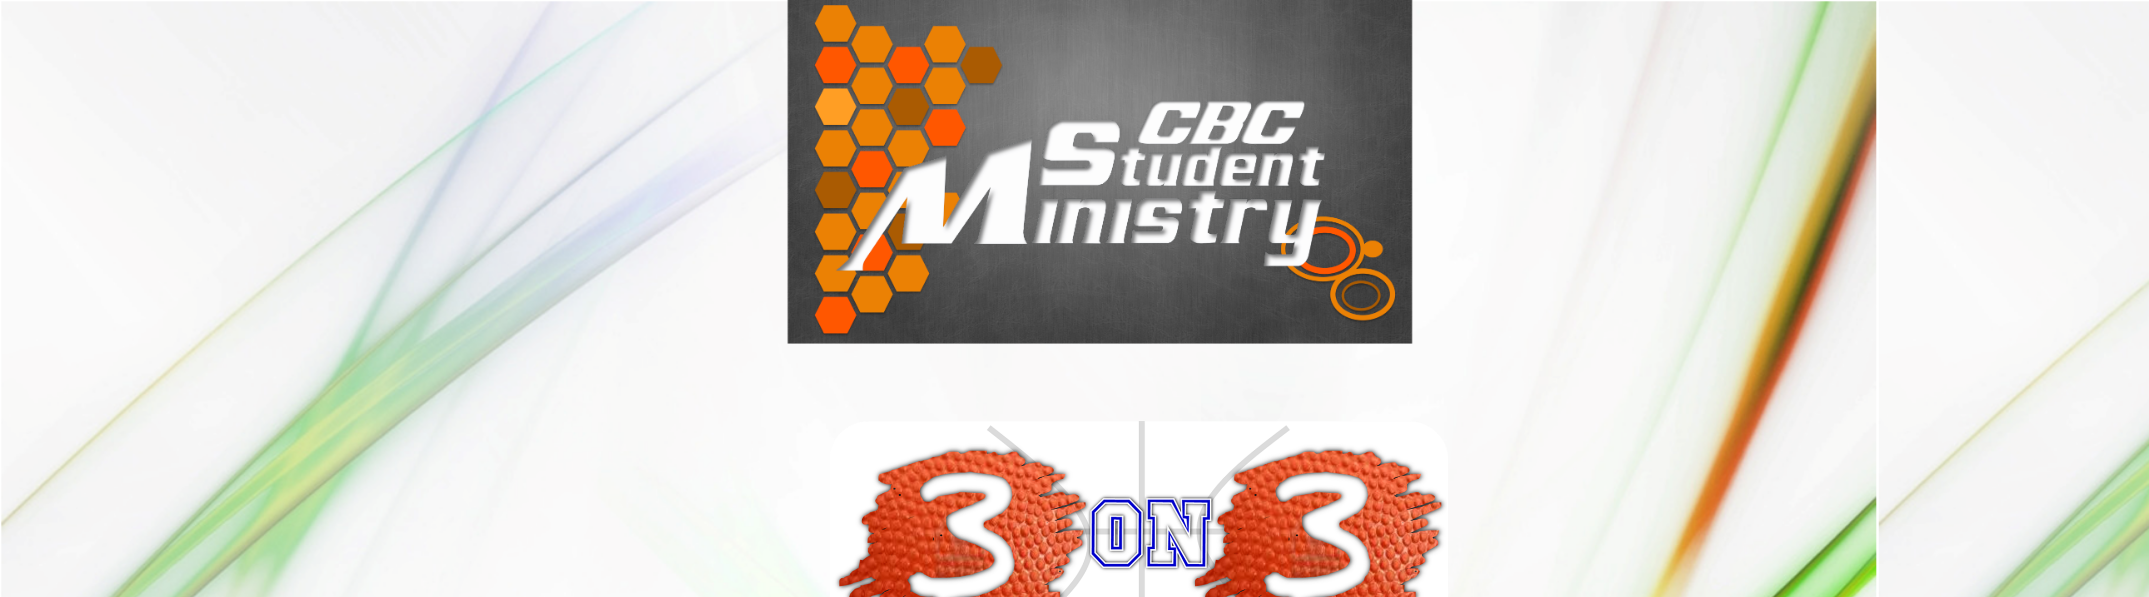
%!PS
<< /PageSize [2149 597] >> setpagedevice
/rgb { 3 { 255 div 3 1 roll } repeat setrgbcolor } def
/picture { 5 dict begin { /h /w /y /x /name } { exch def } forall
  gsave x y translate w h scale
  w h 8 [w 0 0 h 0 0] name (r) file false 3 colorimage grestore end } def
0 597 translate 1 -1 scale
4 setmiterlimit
255 255 255 rgb
0 0 2149 597 rectfill
(img_01.rgb) 1 1 2148 596 picture
(img_02.rgb) 787 0 626 344 picture
(img_03.rgb) 830 421 618 176 picture
showpage
